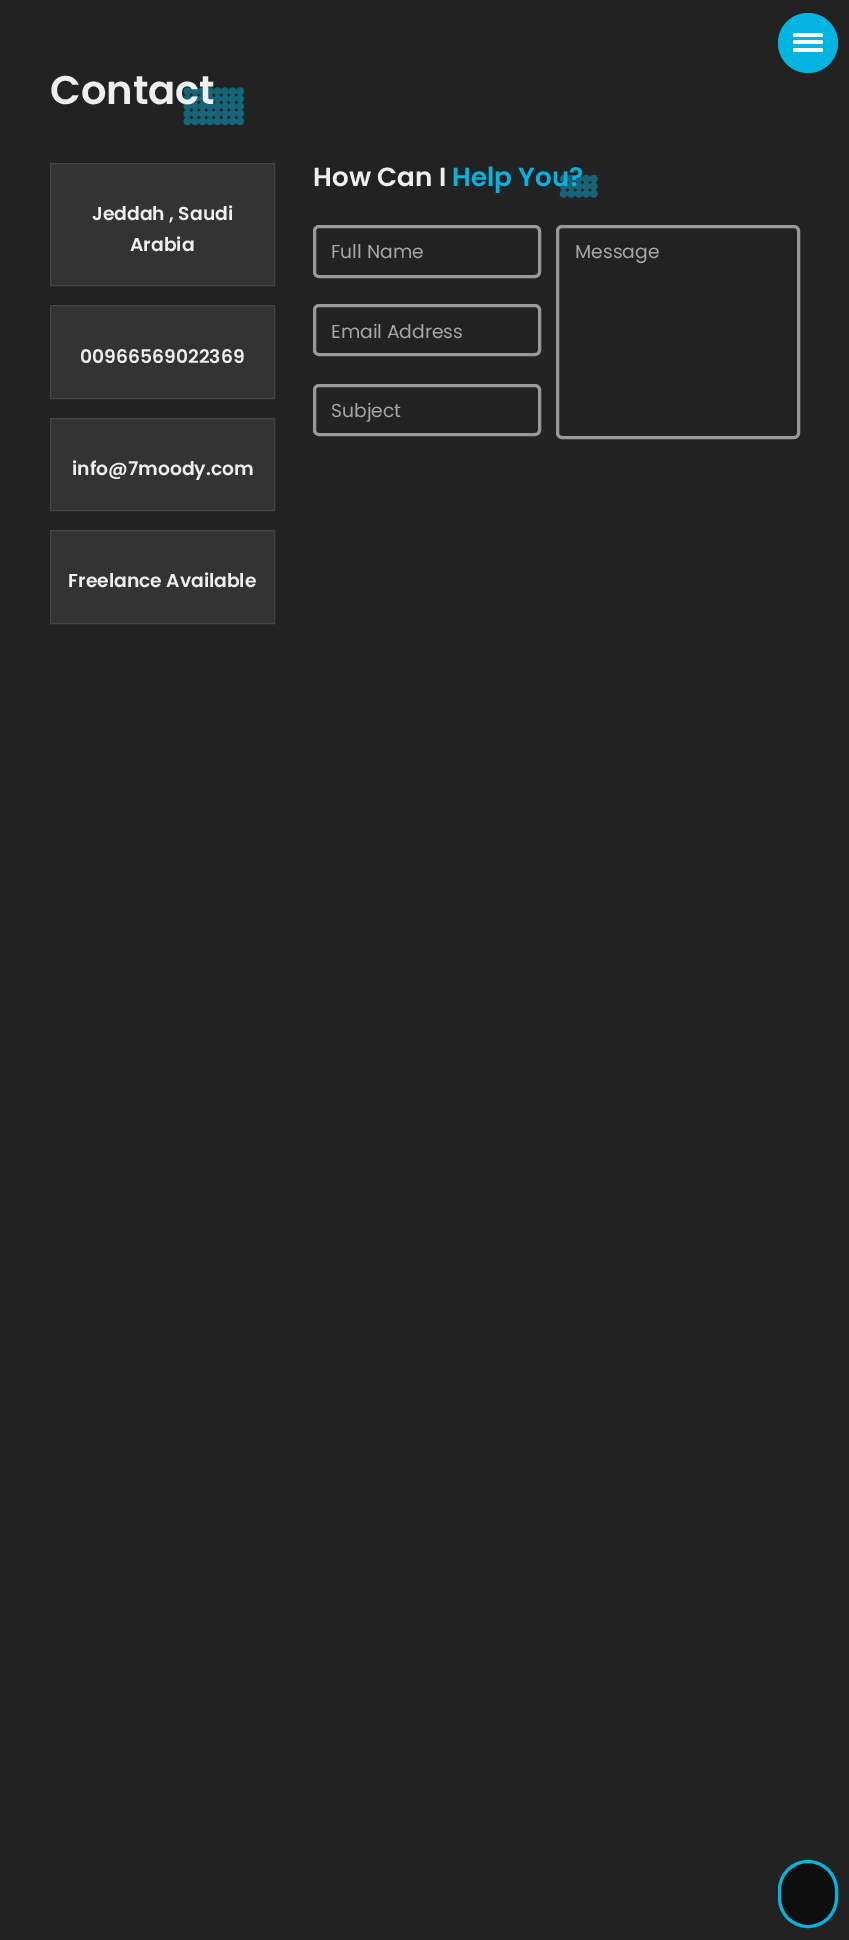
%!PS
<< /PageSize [849 1940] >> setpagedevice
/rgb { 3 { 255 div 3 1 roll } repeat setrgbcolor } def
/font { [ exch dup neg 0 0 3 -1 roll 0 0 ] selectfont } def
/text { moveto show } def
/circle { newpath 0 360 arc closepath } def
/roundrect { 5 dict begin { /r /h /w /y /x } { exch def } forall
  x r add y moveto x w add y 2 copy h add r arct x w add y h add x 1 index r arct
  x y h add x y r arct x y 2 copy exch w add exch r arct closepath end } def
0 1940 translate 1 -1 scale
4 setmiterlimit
34 34 34 rgb
0 0 849 1940 rectfill
4 180 224 rgb
808 43 30 circle fill
255 255 255 rgb
793 33 30 4 2 roundrect fill
793 40 30 4 2 roundrect fill
793 48 30 4 2 roundrect fill
21 100 120 rgb
7.8 setlinewidth
1 setlinecap
[0 7.5] 0 setdash
187.5 91.2 moveto 52.7 0 rlineto 187.5 98.8 moveto 52.7 0 rlineto 187.5 106.2 moveto 52.7 0 rlineto 187.5 113.8 moveto 52.7 0 rlineto 187.5 121.2 moveto 52.7 0 rlineto stroke
51 51 51 rgb
50.5 163.5 moveto 224 0 rlineto 0 122 rlineto -224 0 rlineto closepath gsave fill grestore
68 68 68 rgb
1 setlinewidth
0 setlinecap
[] 0 setdash
stroke
51 51 51 rgb
50.5 305.5 moveto 224 0 rlineto 0 93 rlineto -224 0 rlineto closepath gsave fill grestore
68 68 68 rgb
stroke
51 51 51 rgb
50.5 418.5 moveto 224 0 rlineto 0 92 rlineto -224 0 rlineto closepath gsave fill grestore
68 68 68 rgb
stroke
51 51 51 rgb
50.5 530.5 moveto 224 0 rlineto 0 93 rlineto -224 0 rlineto closepath gsave fill grestore
68 68 68 rgb
stroke
21 100 120 rgb
7.8 setlinewidth
1 setlinecap
[0 7.5] 0 setdash
563.8 178.8 moveto 30.2 0 rlineto 563.8 186.2 moveto 30.2 0 rlineto 563.8 193.8 moveto 30.2 0 rlineto stroke
153 153 153 rgb
3 setlinewidth
0 setlinecap
[] 0 setdash
314.5 226.5 225 50 4.5 roundrect stroke
314.5 305.5 225 49 4.5 roundrect stroke
314.5 385.5 225 49 4.5 roundrect stroke
557.5 226.5 241 211 4.5 roundrect stroke
14 14 14 rgb
779.5 1861.5 57 65 28.5 roundrect gsave fill grestore
4 180 224 rgb
stroke
/Poppins-SemiBold 40 font
238 238 238 rgb
(Contact) 50 104 text
/Poppins-SemiBold 18.75 font
(Jeddah , Saudi) 92 220 text
(Arabia) 130 251 text
(00966569022369) 80 363 text
(info@7moody.com) 72 475 text
(Freelance Available) 68 587 text
/Poppins-SemiBold 26.25 font
(How Can I) 313 186 text
4 180 224 rgb
(Help You?) 452 186 text
/Poppins-Regular 18.75 font
165 166 167 rgb
(Full Name) 331 258 text
(Email Address) 331 338 text
(Subject) 331 417 text
(Message) 575 258 text
showpage
